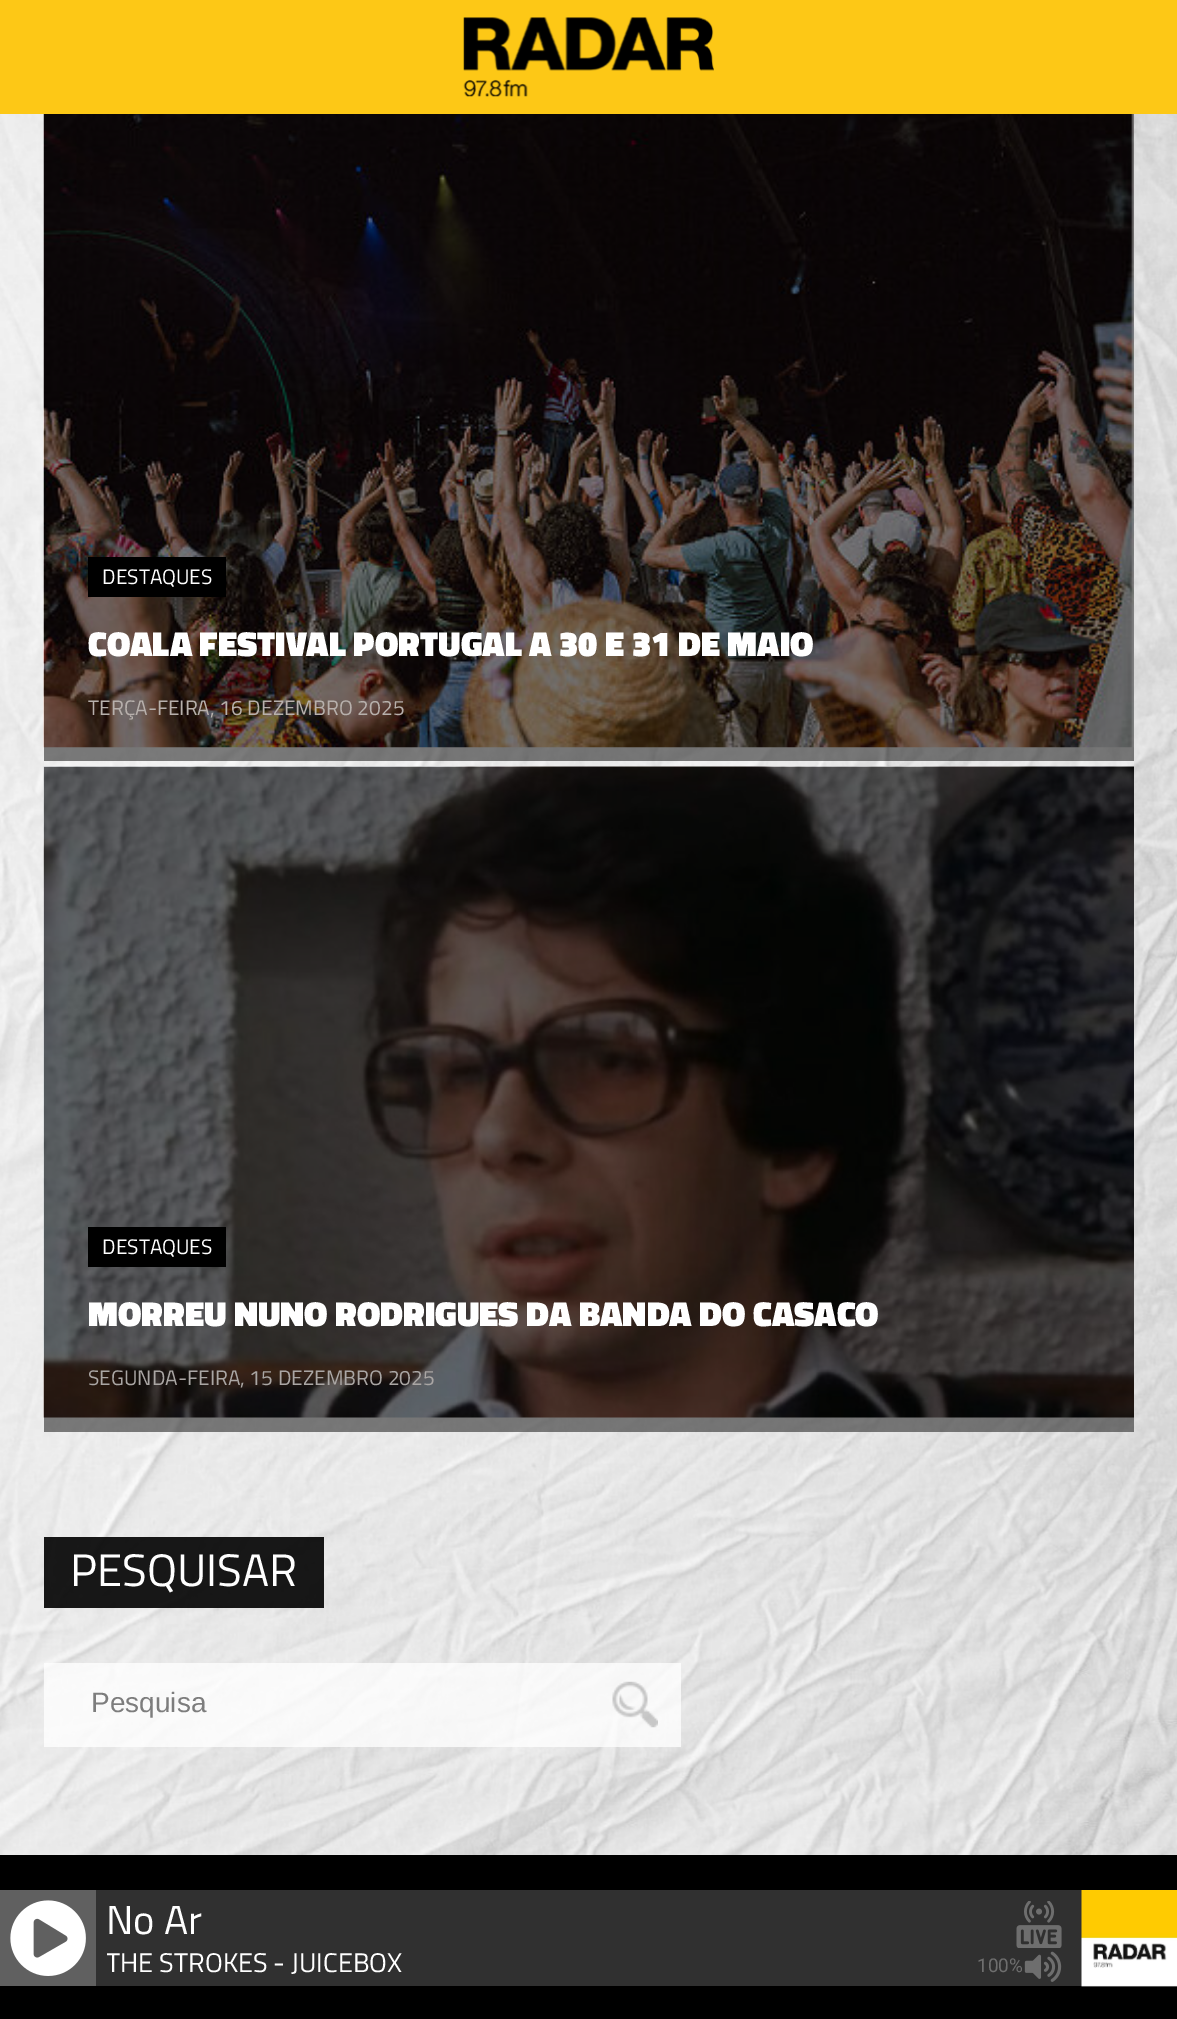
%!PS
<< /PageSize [1177 2019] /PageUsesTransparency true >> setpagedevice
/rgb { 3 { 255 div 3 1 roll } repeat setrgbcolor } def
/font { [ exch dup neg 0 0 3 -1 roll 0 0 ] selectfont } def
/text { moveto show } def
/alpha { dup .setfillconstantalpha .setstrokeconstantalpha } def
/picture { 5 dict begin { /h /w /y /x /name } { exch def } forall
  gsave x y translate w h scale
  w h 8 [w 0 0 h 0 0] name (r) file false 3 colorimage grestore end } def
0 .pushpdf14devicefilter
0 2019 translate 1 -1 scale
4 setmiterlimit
255 255 255 rgb
0 0 1177 2019 rectfill
253 200 22 rgb
0 0 1177 114 rectfill
(img_01.rgb) 463 17 251 80 picture
(img_02.rgb) 0 114 1177 1741 picture
0.2 alpha
255 255 255 rgb
44 747 1090 685 rectfill
1 alpha
(img_03.rgb) 43 114 1091 634 picture
0.5 alpha
0 0 0 rgb
44 114 1090 647 rectfill
1 alpha
88 557 138 40 rectfill
(img_04.rgb) 43 766 1091 652 picture
0.5 alpha
44 767 1090 665 rectfill
1 alpha
88 1227 138 40 rectfill
0.2 alpha
255 255 255 rgb
44 1663 637 84 rectfill
0.9 alpha
0 0 0 rgb
44 1537 280 71 rectfill
0.7 alpha
255 255 255 rgb
44 1663 637 84 rectfill
1 alpha
(img_05.rgb) 612 1681 46 47 picture
0 0 0 rgb
0 1855 1177 35 rectfill
96 96 96 rgb
0 1890 1177 96 rectfill
(img_06.rgb) 10 1900 76 76 picture
48 48 48 rgb
96 1890 986 96 rectfill
0 0 0 rgb
0 1986 1177 33 rectfill
(img_07.rgb) 1081 1890 96 97 picture
(img_08.rgb) 1016 1901 46 47 picture
(img_09.rgb) 1024 1951 38 31 picture
/TitilliumWeb-Regular 21 font
255 255 255 rgb
(DESTAQUES) 102 584 text
/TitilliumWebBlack-Black 35 font
(COALA FESTIVAL PORTUGAL A 30 E 31 DE MAIO) 88 656 text
/TitilliumWeb-Regular 21 font
183 176 172 rgb
(TERÇA-FEIRA, 16 DEZEMBRO 2025) 88 715 text
255 255 255 rgb
(DESTAQUES) 102 1254 text
/TitilliumWebBlack-Black 35 font
(MORREU NUNO RODRIGUES DA BANDA DO CASACO) 88 1326 text
/TitilliumWeb-Regular 21 font
170 166 164 rgb
(SEGUNDA-FEIRA, 15 DEZEMBRO 2025) 88 1385 text
/TitilliumWeb-Regular 45.5 font
255 255 255 rgb
(PESQUISAR) 70 1586 text
/LiberationSans-Regular 28 font
125 125 125 rgb
(Pesquisa) 91 1712 text
/TitilliumWeb-Regular 40.5 font
255 255 255 rgb
(No Ar) 106 1934 text
gsave
107 1941 870 45 rectclip
/TitilliumWeb-Regular 27 font
(THE STROKES - JUICEBOX) 106 1972 text
grestore
/Roboto-Regular 19 font
110 110 110 rgb
(100%) 977 1972 text
.poppdf14devicefilter showpage
